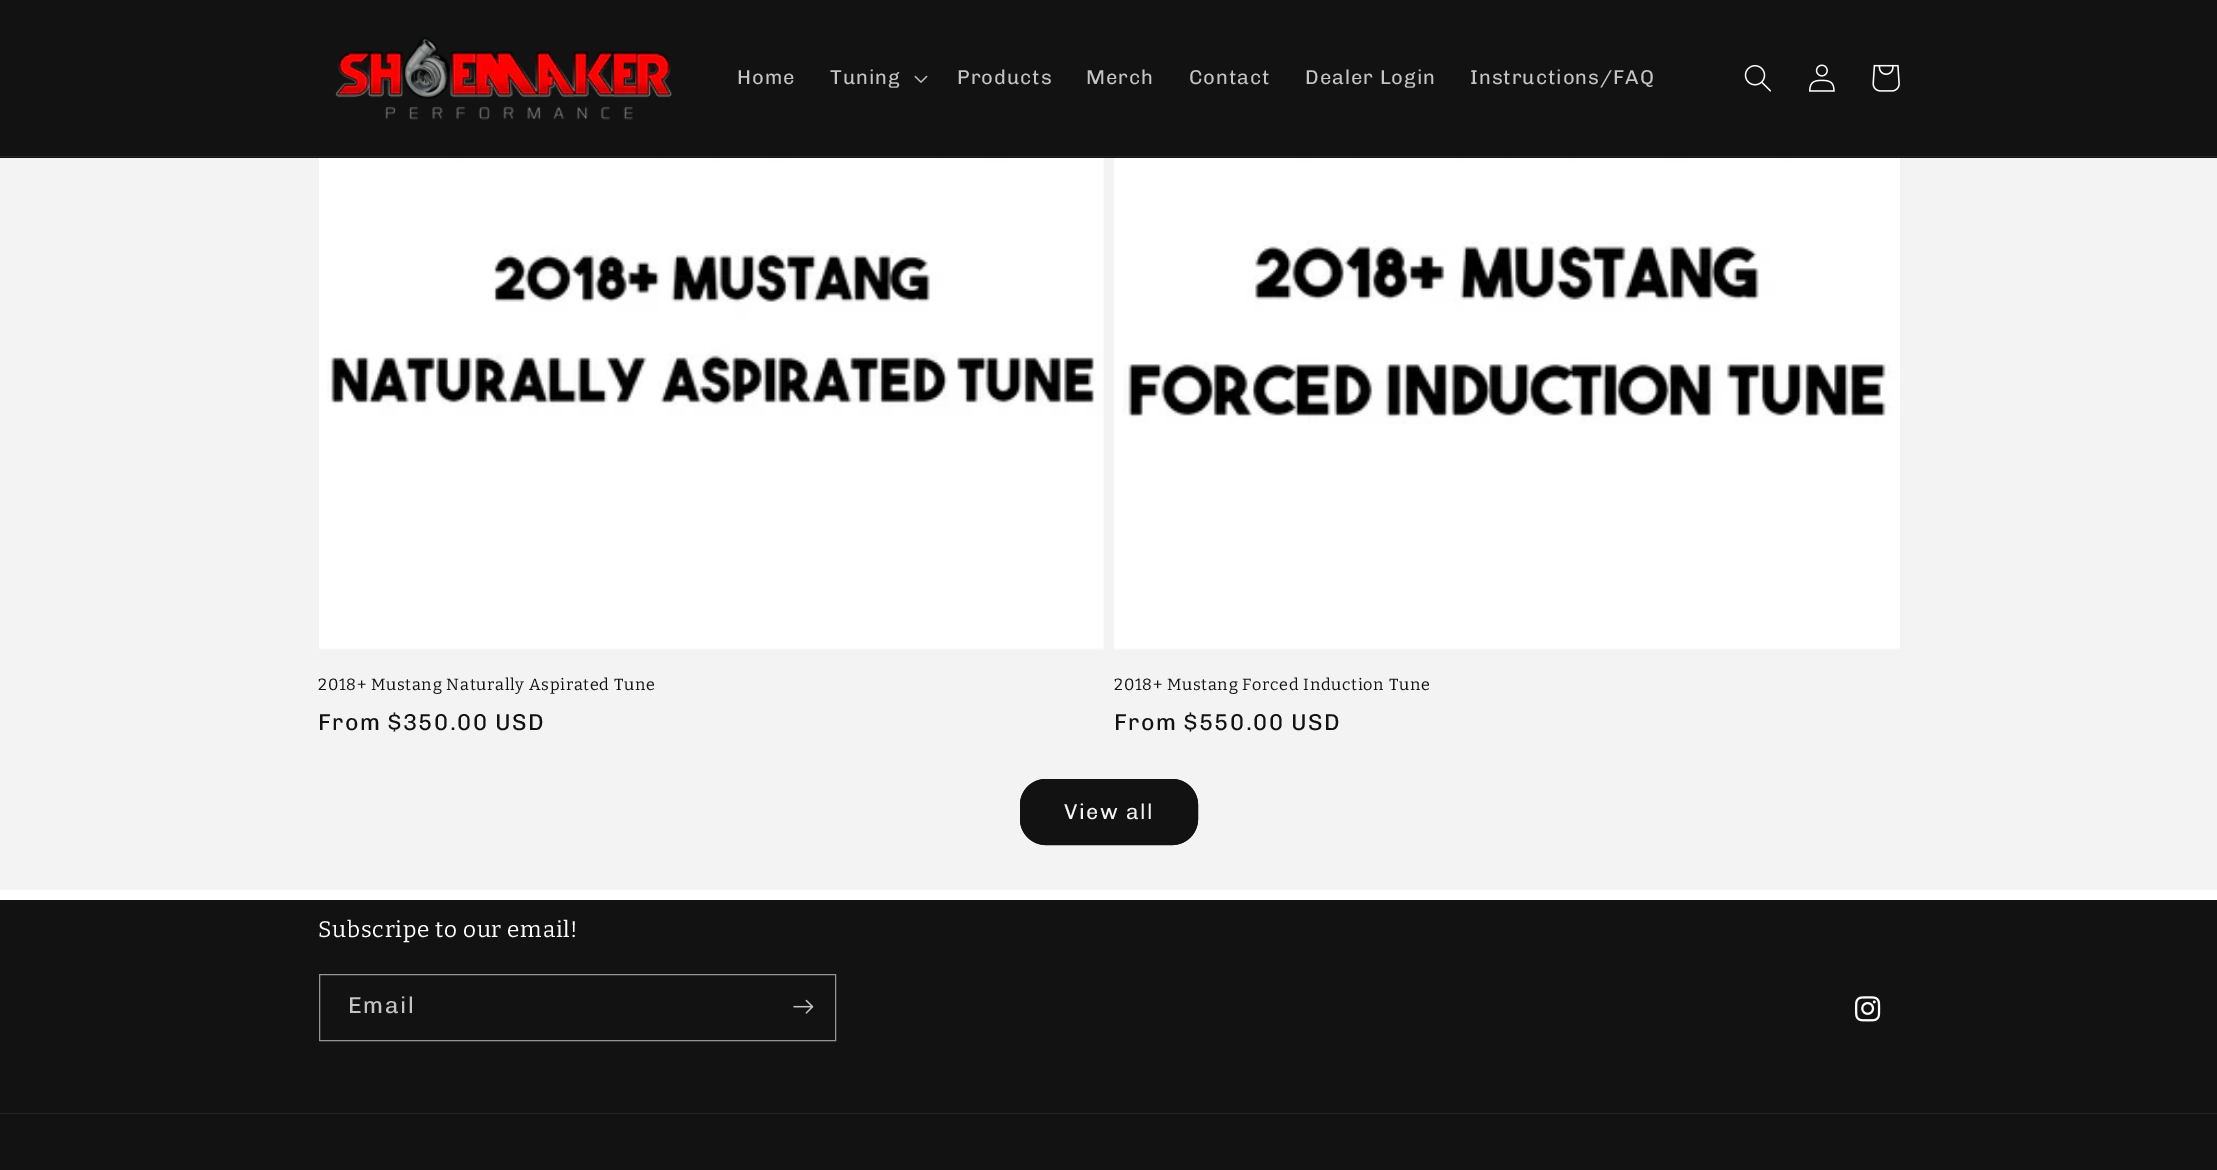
%!PS
<< /PageSize [2217 1170] >> setpagedevice
/rgb { 3 { 255 div 3 1 roll } repeat setrgbcolor } def
/font { [ exch dup neg 0 0 3 -1 roll 0 0 ] selectfont } def
/roundrect { 5 dict begin { /r /h /w /y /x } { exch def } forall
  x r add y moveto x w add y 2 copy h add r arct x w add y h add x 1 index r arct
  x y h add x y r arct x y 2 copy exch w add exch r arct closepath end } def
/picture { 5 dict begin { /h /w /y /x /name } { exch def } forall
  gsave x y translate w h scale
  w h 8 [w 0 0 h 0 0] name (r) file false 3 colorimage grestore end } def
0 1170 translate 1 -1 scale
4 setmiterlimit
255 255 255 rgb
0 0 2217 1170 rectfill
18 18 18 rgb
0 0 2217 158 rectfill
37 37 37 rgb
0 156 2217 1 rectfill
(img_01.rgb) 335 37 337 83 picture
(img_02.rgb) 914 75 14 8 picture
(img_03.rgb) 1744 65 28 27 picture
(img_04.rgb) 1809 64 26 28 picture
(img_05.rgb) 1872 64 28 28 picture
243 243 243 rgb
0 158 2217 732 rectfill
(img_06.rgb) 319 158 785 492 picture
(img_07.rgb) 1114 158 786 492 picture
18 18 18 rgb
1020 779 178 66 26 roundrect fill
1020.5 779.5 177 65 25.5 roundrect stroke
0 900 2217 270 rectfill
148 148 148 rgb
319.5 974.5 516 66 rectstroke
(img_08.rgb) 793 999 21 15 picture
(img_09.rgb) 1855 996 26 26 picture
37 37 37 rgb
0 1113 2217 1 rectfill
/Chivo-Regular 20.1 font
196 196 196 rgb
737 84 moveto 0.9 0 (Home) ashow
830 84 moveto 0.9 0 (Tuning) ashow
957 84 moveto 0.9 0 (Products) ashow
1086 84 moveto 0.9 0 (Merch) ashow
1189 84 moveto 0.9 0 (Contact) ashow
1305 84 moveto 0.9 0 (Dealer Login) ashow
1470 84 moveto 0.9 0 (Instructions/FAQ) ashow
/Bitter-Regular 16.25 font
18 18 18 rgb
318 690 moveto 0.75 0 (2018+ Mustang Naturally Aspirated Tune) ashow
/Chivo-Regular 23 font
318 730 moveto 1.5 0 (From $350.00 USD) ashow
/Bitter-Regular 16.25 font
1114 690 moveto 0.75 0 (2018+ Mustang Forced Induction Tune) ashow
/Chivo-Regular 23 font
1114 730 moveto 1.5 0 (From $550.00 USD) ashow
/Chivo-Regular 21.5 font
243 243 243 rgb
1064 819 moveto 1.5 0 (View all) ashow
/Bitter-Regular 22.5 font
255 255 255 rgb
318 937 moveto 0.75 0 (Subscripe to our email!) ashow
/Chivo-Regular 23 font
196 196 196 rgb
348 1013 moveto 1.5 0 (Email) ashow
showpage
